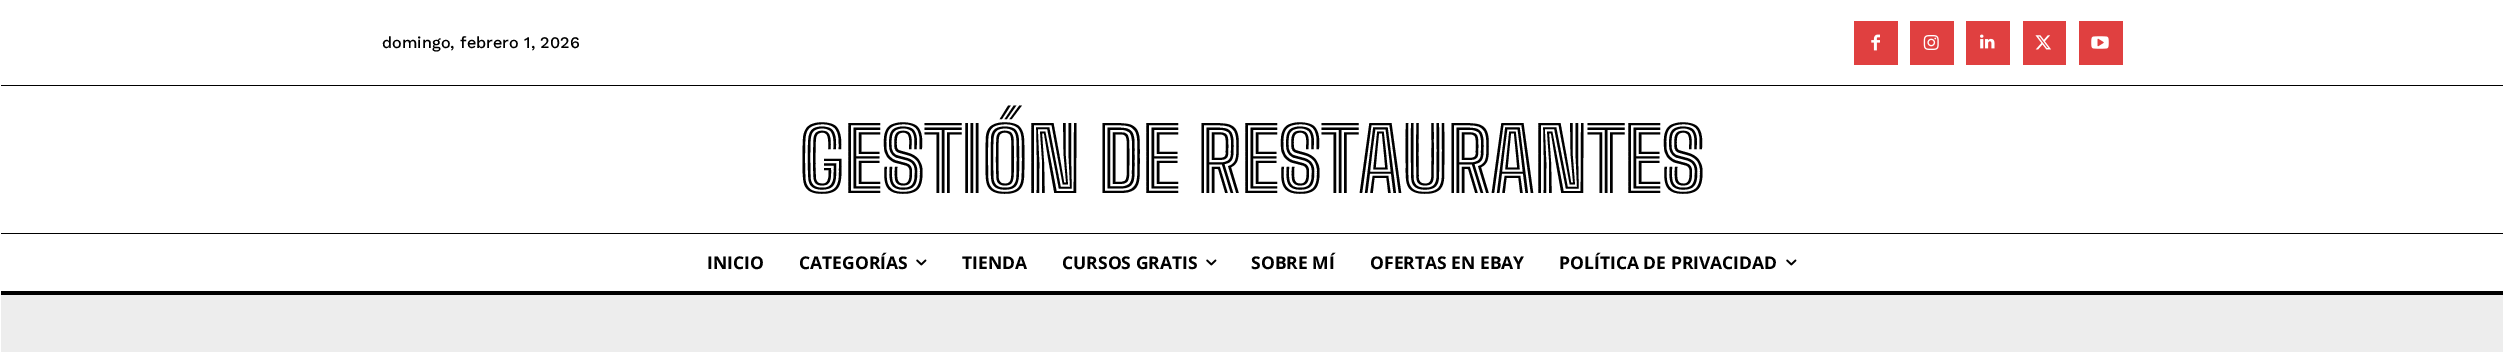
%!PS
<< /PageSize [2503 352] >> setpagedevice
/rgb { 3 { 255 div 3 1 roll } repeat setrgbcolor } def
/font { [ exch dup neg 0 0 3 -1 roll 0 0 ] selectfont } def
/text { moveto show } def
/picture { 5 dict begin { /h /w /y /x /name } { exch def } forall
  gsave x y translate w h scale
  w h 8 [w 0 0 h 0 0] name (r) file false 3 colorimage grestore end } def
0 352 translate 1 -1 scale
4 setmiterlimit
255 255 255 rgb
0 0 2503 352 rectfill
224 64 64 rgb
1854 21 44 44 rectfill
(img_01.rgb) 1871 34 9 17 picture
1910 21 44 44 rectfill
(img_02.rgb) 1923 35 16 15 picture
1966 21 44 44 rectfill
(img_03.rgb) 1980 34 15 15 picture
2023 21 43 44 rectfill
(img_04.rgb) 2035 35 16 15 picture
2079 21 44 44 rectfill
(img_05.rgb) 2091 36 18 13 picture
0 0 0 rgb
1 85 2502 1 rectfill
1 233 2502 1 rectfill
1 291 2502 4 rectfill
(img_06.rgb) 916 259 11 7 picture
(img_06.rgb) 1206 259 11 7 picture
(img_06.rgb) 1786 259 11 7 picture
237 237 237 rgb
1 295 2502 57 rectfill
/WorkSans-Medium 16.25 font
0 0 0 rgb
(domingo, febrero 1, 2026) 382 48 text
/BigShouldersInlineText-Black 87.5 font
799 193 moveto -1.25 0 (GESTIÓN DE RESTAURANTES) ashow
/OpenSans-Bold 17.5 font
(INICIO) 707 269 text
(CATEGORÍAS) 799 269 text
(TIENDA) 962 269 text
(CURSOS GRATIS) 1062 269 text
(SOBRE MÍ) 1251 269 text
(OFERTAS EN EBAY) 1370 269 text
(POLÍTICA DE PRIVACIDAD) 1559 269 text
showpage
